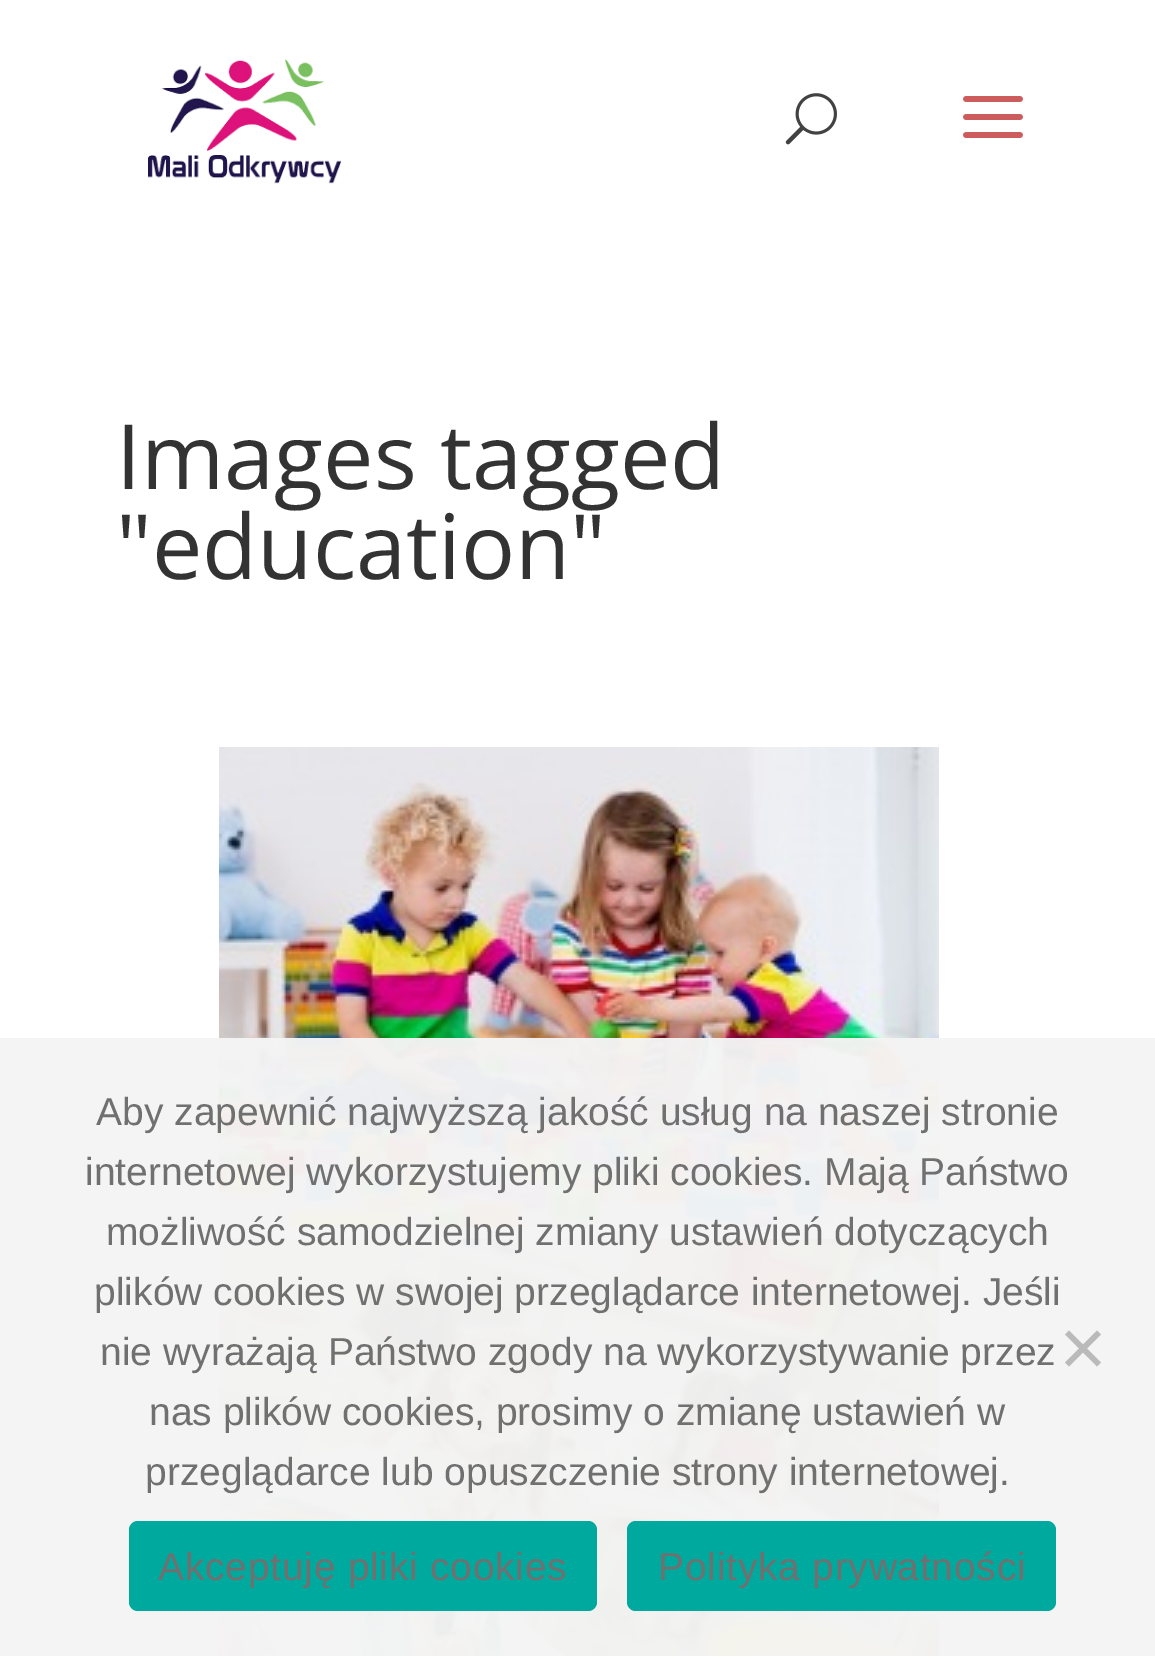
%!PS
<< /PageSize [1155 1656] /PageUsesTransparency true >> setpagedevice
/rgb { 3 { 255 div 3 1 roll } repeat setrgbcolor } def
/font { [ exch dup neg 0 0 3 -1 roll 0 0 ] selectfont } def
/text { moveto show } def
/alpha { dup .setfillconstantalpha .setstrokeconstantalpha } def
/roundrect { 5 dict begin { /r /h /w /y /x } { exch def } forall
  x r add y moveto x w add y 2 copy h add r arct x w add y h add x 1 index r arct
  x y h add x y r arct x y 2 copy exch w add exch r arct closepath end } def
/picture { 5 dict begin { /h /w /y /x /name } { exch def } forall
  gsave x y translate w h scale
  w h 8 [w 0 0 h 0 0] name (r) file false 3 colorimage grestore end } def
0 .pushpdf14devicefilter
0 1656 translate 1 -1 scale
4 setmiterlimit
255 255 255 rgb
0 0 1155 1656 rectfill
(img_01.rgb) 148 59 193 125 picture
(img_02.rgb) 785 93 52 52 picture
(img_03.rgb) 963 96 60 42 picture
(img_04.rgb) 219 747 720 480 picture
(img_05.rgb) 219 1239 720 417 picture
0.97 alpha
244 244 244 rgb
0 1038 1155 618 rectfill
1 alpha
186 186 186 rgb
1097 1330.5 moveto 4 4 rlineto -32 32 rlineto -4 -4 rlineto closepath fill
1065 1334.5 moveto 4 -4 rlineto 32 32 rlineto -4 4 rlineto closepath fill
0 169 157 rgb
129 1521 468 90 9 roundrect fill
627 1521 429 90 9 roundrect fill
/OpenSans-Regular 90 font
51 51 51 rgb
(Images tagged) 116 489 text
("education") 116 579 text
/LiberationSans-Regular 39 font
112 112 112 rgb
(Aby zapewnić najwyższą jakość usług na naszej stronie) 96 1125 text
(internetowej wykorzystujemy pliki cookies. Mają Państwo) 85 1185 text
(możliwość samodzielnej zmiany ustawień dotyczących) 106 1245 text
(plików cookies w swojej przeglądarce internetowej. Jeśli) 94 1305 text
(nie wyrażają Państwo zgody na wykorzystywanie przez) 100 1365 text
(nas plików cookies, prosimy o zmianę ustawień w) 149 1425 text
(przeglądarce lub opuszczenie strony internetowej.) 145 1485 text
158 1580 moveto 0.75 0 (Akceptuję pliki cookies) ashow
658 1580 moveto 0.75 0 (Polityka prywatności) ashow
.poppdf14devicefilter showpage
